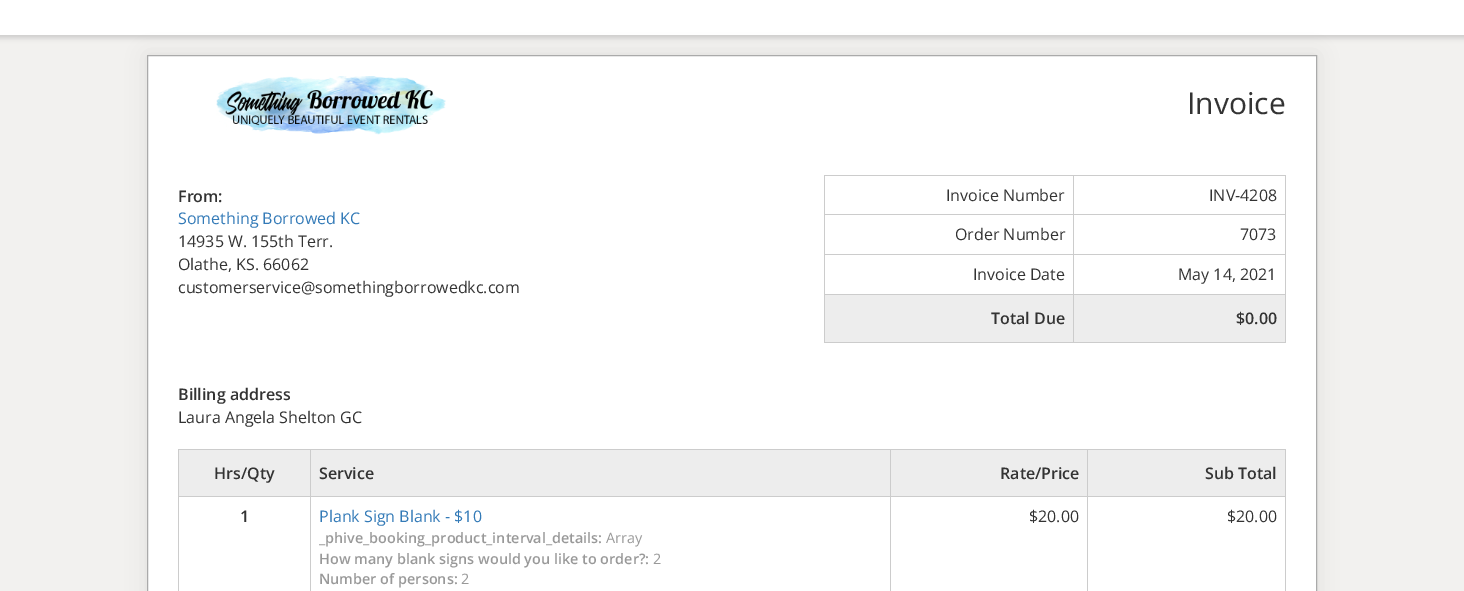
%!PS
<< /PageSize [1464 591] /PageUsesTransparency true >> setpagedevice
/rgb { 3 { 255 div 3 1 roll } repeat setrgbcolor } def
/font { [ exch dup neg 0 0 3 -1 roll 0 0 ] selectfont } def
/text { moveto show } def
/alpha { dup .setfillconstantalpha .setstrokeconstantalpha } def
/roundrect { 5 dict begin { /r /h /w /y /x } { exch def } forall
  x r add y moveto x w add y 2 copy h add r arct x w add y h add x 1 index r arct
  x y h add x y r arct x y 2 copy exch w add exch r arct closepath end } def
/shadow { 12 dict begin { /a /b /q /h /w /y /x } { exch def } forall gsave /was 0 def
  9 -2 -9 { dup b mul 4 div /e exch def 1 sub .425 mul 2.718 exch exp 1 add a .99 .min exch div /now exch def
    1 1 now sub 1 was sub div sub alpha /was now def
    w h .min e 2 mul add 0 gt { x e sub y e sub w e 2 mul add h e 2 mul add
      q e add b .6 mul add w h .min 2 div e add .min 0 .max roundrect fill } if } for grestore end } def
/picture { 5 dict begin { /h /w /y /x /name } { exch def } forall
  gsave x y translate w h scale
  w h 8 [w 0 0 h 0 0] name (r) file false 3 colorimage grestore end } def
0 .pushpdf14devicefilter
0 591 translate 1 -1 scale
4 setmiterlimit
242 241 239 rgb
0 0 1464 591 rectfill
0 0 0 rgb
-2 -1 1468 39 0 2.5 0.15 shadow
255 255 255 rgb
0 0 1464 35 rectfill
0 0 0 rgb
147 55 1170 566 0 10 0.07 shadow
255 255 255 rgb
147.5 55.5 moveto 1169 0 rlineto 0 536 rlineto -1169 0 rlineto closepath gsave fill grestore
170 170 170 rgb
stroke
(img_01.rgb) 216 76 230 59 picture
204 204 204 rgb
824 175 462 1 rectfill
1285 175 1 168 rectfill
824 342 462 1 rectfill
824 175 1 168 rectfill
1073 214 213 1 rectfill
1073 254 213 1 rectfill
1073 294 213 1 rectfill
1073 294 1 49 rectfill
824 294 250 1 rectfill
1073 254 1 41 rectfill
824 254 250 1 rectfill
1073 214 1 41 rectfill
824 214 250 1 rectfill
1073 175 1 40 rectfill
237 237 237 rgb
825 295 248 47 rectfill
1074 295 211 47 rectfill
204 204 204 rgb
178 449 1108 1 rectfill
1285 449 1 142 rectfill
178 449 1 142 rectfill
237 237 237 rgb
179 450 131 46 rectfill
311 450 579 46 rectfill
204 204 204 rgb
1087 496 199 1 rectfill
1087 496 1 95 rectfill
890 496 198 1 rectfill
890 496 1 95 rectfill
310 496 581 1 rectfill
310 496 1 95 rectfill
178 496 133 1 rectfill
310 449 1 48 rectfill
237 237 237 rgb
891 450 196 46 rectfill
204 204 204 rgb
890 449 1 48 rectfill
237 237 237 rgb
1088 450 197 46 rectfill
204 204 204 rgb
1087 449 1 48 rectfill
/OpenSans-Regular 30 font
51 51 51 rgb
(Invoice) 1187 114 text
/OpenSans-SemiBold 16 font
(From:) 178 202 text
/OpenSans-Regular 16 font
51 122 183 rgb
(Something Borrowed KC) 178 224 text
51 51 51 rgb
(14935 W. 155th Terr.) 178 247 text
(Olathe, KS. 66062) 178 270 text
(customerservice@somethingborrowedkc.com) 178 293 text
(Invoice Number) 946 201 text
(INV-4208) 1209 201 text
(Order Number) 955 240 text
(7073) 1240 240 text
(Invoice Date) 973 280 text
(May 14, 2021) 1178 280 text
/OpenSans-SemiBold 16 font
(Total Due) 991 324 text
($0.00) 1236 324 text
(Billing address) 178 400 text
/OpenSans-Regular 16 font
(Laura Angela Shelton GC) 178 423 text
/OpenSans-SemiBold 16 font
(Hrs/Qty) 214 479 text
(Service) 319 479 text
(Rate/Price) 1000 479 text
(Sub Total) 1205 479 text
(1) 240 522 text
/OpenSans-Regular 16 font
51 122 183 rgb
(Plank Sign Blank - $10) 319 522 text
/OpenSans-SemiBold 14.4 font
153 153 153 rgb
(_phive_booking_product_interval_details:) 319 543 text
/OpenSans-Regular 14.4 font
(Array) 606 543 text
/OpenSans-SemiBold 14.4 font
(How many blank signs would you like to order?:) 319 564 text
/OpenSans-Regular 14.4 font
(2) 653 564 text
/OpenSans-SemiBold 14.4 font
(Number of persons:) 319 584 text
/OpenSans-Regular 14.4 font
(2) 461 584 text
/OpenSans-Regular 16 font
51 51 51 rgb
($20.00) 1029 522 text
($20.00) 1227 522 text
.poppdf14devicefilter showpage
